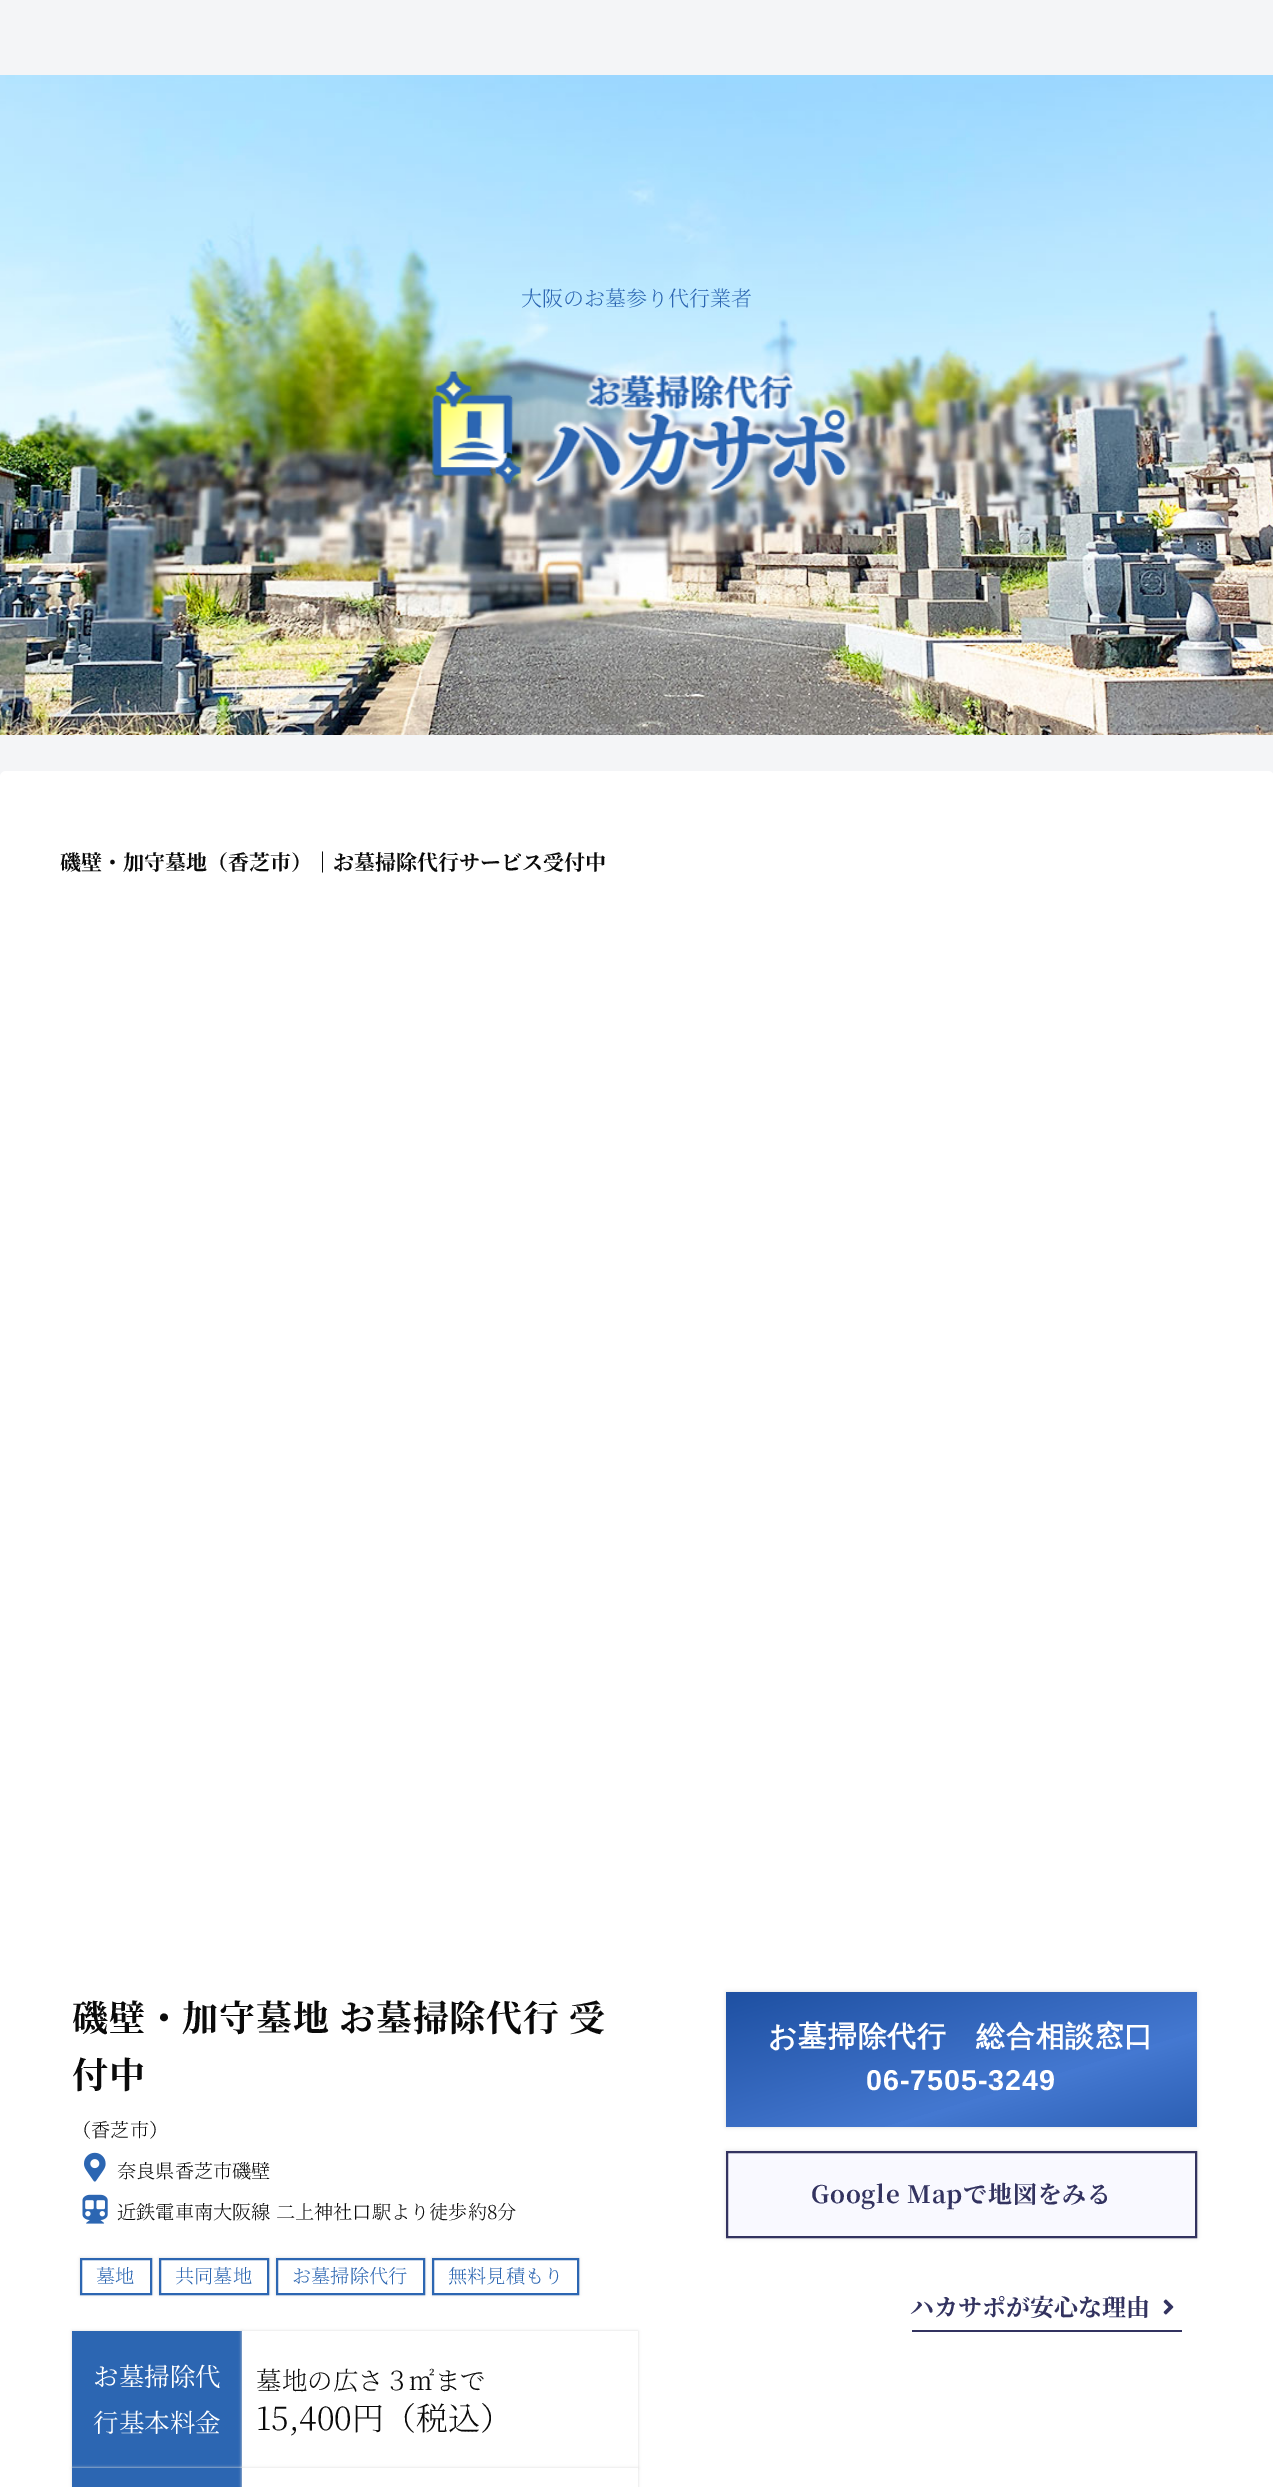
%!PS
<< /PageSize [1273 2487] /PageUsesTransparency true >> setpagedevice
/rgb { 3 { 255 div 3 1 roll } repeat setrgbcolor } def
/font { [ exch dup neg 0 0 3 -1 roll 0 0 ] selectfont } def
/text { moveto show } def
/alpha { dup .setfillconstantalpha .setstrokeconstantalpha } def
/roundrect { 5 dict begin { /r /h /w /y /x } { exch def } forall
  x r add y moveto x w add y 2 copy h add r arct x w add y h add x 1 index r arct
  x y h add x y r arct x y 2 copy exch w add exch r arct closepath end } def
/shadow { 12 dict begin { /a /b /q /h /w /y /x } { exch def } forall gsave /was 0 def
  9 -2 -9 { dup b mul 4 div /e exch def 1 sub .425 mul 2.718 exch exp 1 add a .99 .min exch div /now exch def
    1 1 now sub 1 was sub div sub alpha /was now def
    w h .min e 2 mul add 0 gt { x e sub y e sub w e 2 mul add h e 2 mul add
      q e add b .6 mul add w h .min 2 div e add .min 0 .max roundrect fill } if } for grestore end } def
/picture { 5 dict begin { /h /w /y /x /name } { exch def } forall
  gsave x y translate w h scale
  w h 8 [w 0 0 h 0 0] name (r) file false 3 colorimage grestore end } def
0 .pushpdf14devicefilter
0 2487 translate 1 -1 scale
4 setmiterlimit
244 245 247 rgb
0 0 1273 2487 rectfill
(img_01.rgb) 0 75 1273 660 picture
(img_02.rgb) 431 370 421 127 picture
255 255 255 rgb
0 771 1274 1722 6 roundrect fill
(img_03.rgb) 84 2152 22 30 picture
(img_04.rgb) 82 2194 26 30 picture
221 221 221 rgb
80 2258 72 37 0 1.5 1 shadow
255 255 255 rgb
81 2259 moveto 70 0 rlineto 0 35 rlineto -70 0 rlineto closepath gsave fill grestore
44 102 178 rgb
2 setlinewidth
stroke
221 221 221 rgb
159 2258 110 37 0 1.5 1 shadow
255 255 255 rgb
160 2259 moveto 108 0 rlineto 0 35 rlineto -108 0 rlineto closepath gsave fill grestore
44 102 178 rgb
stroke
221 221 221 rgb
276 2258 149 37 0 1.5 1 shadow
255 255 255 rgb
277 2259 moveto 147 0 rlineto 0 35 rlineto -147 0 rlineto closepath gsave fill grestore
44 102 178 rgb
stroke
gsave
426 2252 moveto 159 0 rlineto 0 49 rlineto -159 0 rlineto closepath 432 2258 moveto 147 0 rlineto 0 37 rlineto -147 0 rlineto closepath eoclip newpath
221 221 221 rgb
432 2258 147 37 0 1.5 1 shadow
grestore
433 2259 145 35 rectstroke
221 221 221 rgb
72 2331 170 137 0 1.5 1 shadow
44 102 178 rgb
72 2331 170 137 rectfill
221 221 221 rgb
242 2331 396 137 0 1.5 1 shadow
255 255 255 rgb
242 2331 396 137 rectfill
221 221 221 rgb
72 2468 170 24 0 1.5 1 shadow
44 102 178 rgb
72 2468 170 19 rectfill
221 221 221 rgb
242 2468 396 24 0 1.5 1 shadow
255 255 255 rgb
242 2468 396 19 rectfill
221 221 221 rgb
726 1992 471 135 0 2 1 shadow
gsave 726 1992 moveto 471 0 rlineto 0 135 rlineto -471 0 rlineto closepath clip newpath
<< /ShadingType 2 /ColorSpace /DeviceRGB /Coords [922 1932 1015 2236] /Extend [true true] /Function << /FunctionType 3 /Domain [0 1] /Functions [<< /FunctionType 2 /Domain [0 1] /C0 [0.118 0.314 0.635] /C1 [0.267 0.471 0.82] /N 1 >> << /FunctionType 2 /Domain [0 1] /C0 [0.267 0.471 0.82] /C1 [0.118 0.314 0.635] /N 1 >>] /Bounds [0.56] /Encode [0 1 0 1] >> >> shfill grestore
726 2151 471 87 0 2 1 shadow
249 249 255 rgb
727 2152 moveto 469 0 rlineto 0 85 rlineto -469 0 rlineto closepath gsave fill grestore
51 51 96 rgb
stroke
(img_05.rgb) 1163 2299 11 16 picture
912 2330 270 2 rectfill
/NotoSerifJP-Light 21 font
44 102 178 rgb
(大阪のお墓参り代行業者) 521 306 text
/NotoSerifJP-Bold 21 font
10 10 10 rgb
(磯壁・加守墓地（香芝市）｜お墓掃除代行サービス受付中) 60 870 text
/NotoSerifJP-Bold 36 font
72 2031 moveto 0.75 0 (磯壁・加守墓地 お墓掃除代行 受) ashow
72 2088 moveto 0.75 0 (付中) ashow
/NotoSerifJP-Light 19.2 font
(（香芝市）) 72 2137 text
(奈良県香芝市磯壁) 117 2178 text
(近鉄電車南大阪線 二上神社口駅より徒歩約8分) 117 2219 text
44 102 178 rgb
(墓地) 96 2283 text
(共同墓地) 175 2283 text
(お墓掃除代行) 292 2283 text
(無料見積もり) 448 2283 text
/NotoSerifJP-Regular 25.5 font
255 255 255 rgb
(お墓掃除代) 93 2386 text
(行基本料金) 93 2432 text
/NotoSerifJP-Light 25.5 font
10 10 10 rgb
(墓地の広さ３㎡まで) 256 2390 text
/NotoSerifJP-Light 32 font
(15,400円（税込）) 256 2430 text
/WenQuanYiZenHei-Bold 28.75 font
255 255 255 rgb
768 2046 moveto 0.9 0 (お墓掃除代行　総合相談窓口) ashow
/LiberationSans-Bold 28.75 font
866 2090 moveto 0.9 0 (06-7505-3249) ashow
/NotoSerifJP-Bold 24 font
51 51 96 rgb
811 2203 moveto 0.75 0 (Google Mapで地図をみる) ashow
(ハカサポが安心な理由) 910 2316 text
.poppdf14devicefilter showpage
